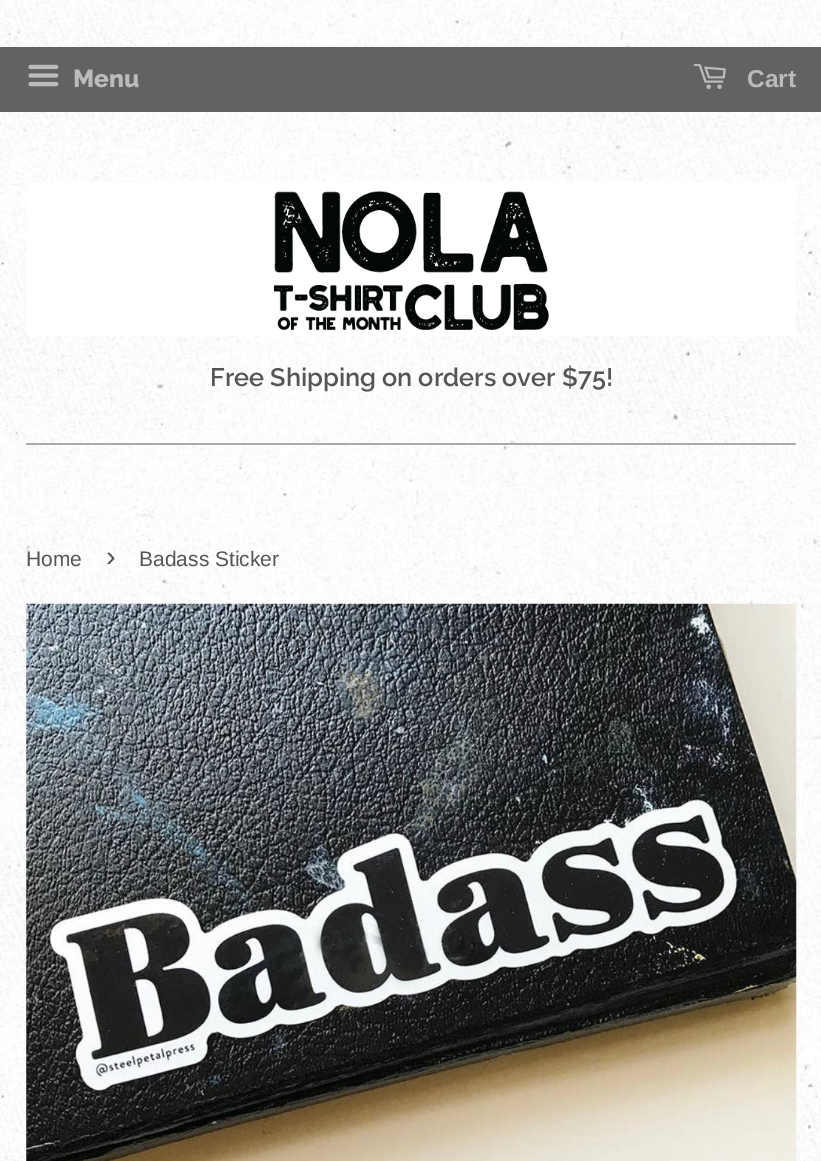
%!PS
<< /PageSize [821 1161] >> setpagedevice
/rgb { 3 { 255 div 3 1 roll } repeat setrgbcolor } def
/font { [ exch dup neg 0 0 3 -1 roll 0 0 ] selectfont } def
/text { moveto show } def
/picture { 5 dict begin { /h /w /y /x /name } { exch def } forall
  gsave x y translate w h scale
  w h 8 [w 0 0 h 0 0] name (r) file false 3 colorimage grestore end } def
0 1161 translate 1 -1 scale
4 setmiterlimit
255 255 255 rgb
0 0 821 1161 rectfill
(img_01.rgb) 0 0 821 1161 picture
98 98 98 rgb
0 47 821 65 rectfill
(img_02.rgb) 28 64 31 23 picture
(img_03.rgb) 693 64 33 26 picture
170 170 170 rgb
26 443 770 2 rectfill
(img_04.rgb) 26 182 770 154 picture
(img_05.rgb) 26 603 771 558 picture
/Raleway-ExtraBold 24.5 font
187 187 187 rgb
(Menu) 73 87 text
/LiberationSans-Bold 24.5 font
(Cart) 747 87 text
/Raleway-SemiBold 25.25 font
85 85 85 rgb
(Free Shipping on orders over $75!) 210 386 text
/LiberationSans-Regular 21 font
(Home) 26 566 text
/LiberationSans-Regular 29 font
(›) 106 566 text
/LiberationSans-Regular 21 font
(Badass Sticker) 139 566 text
showpage
